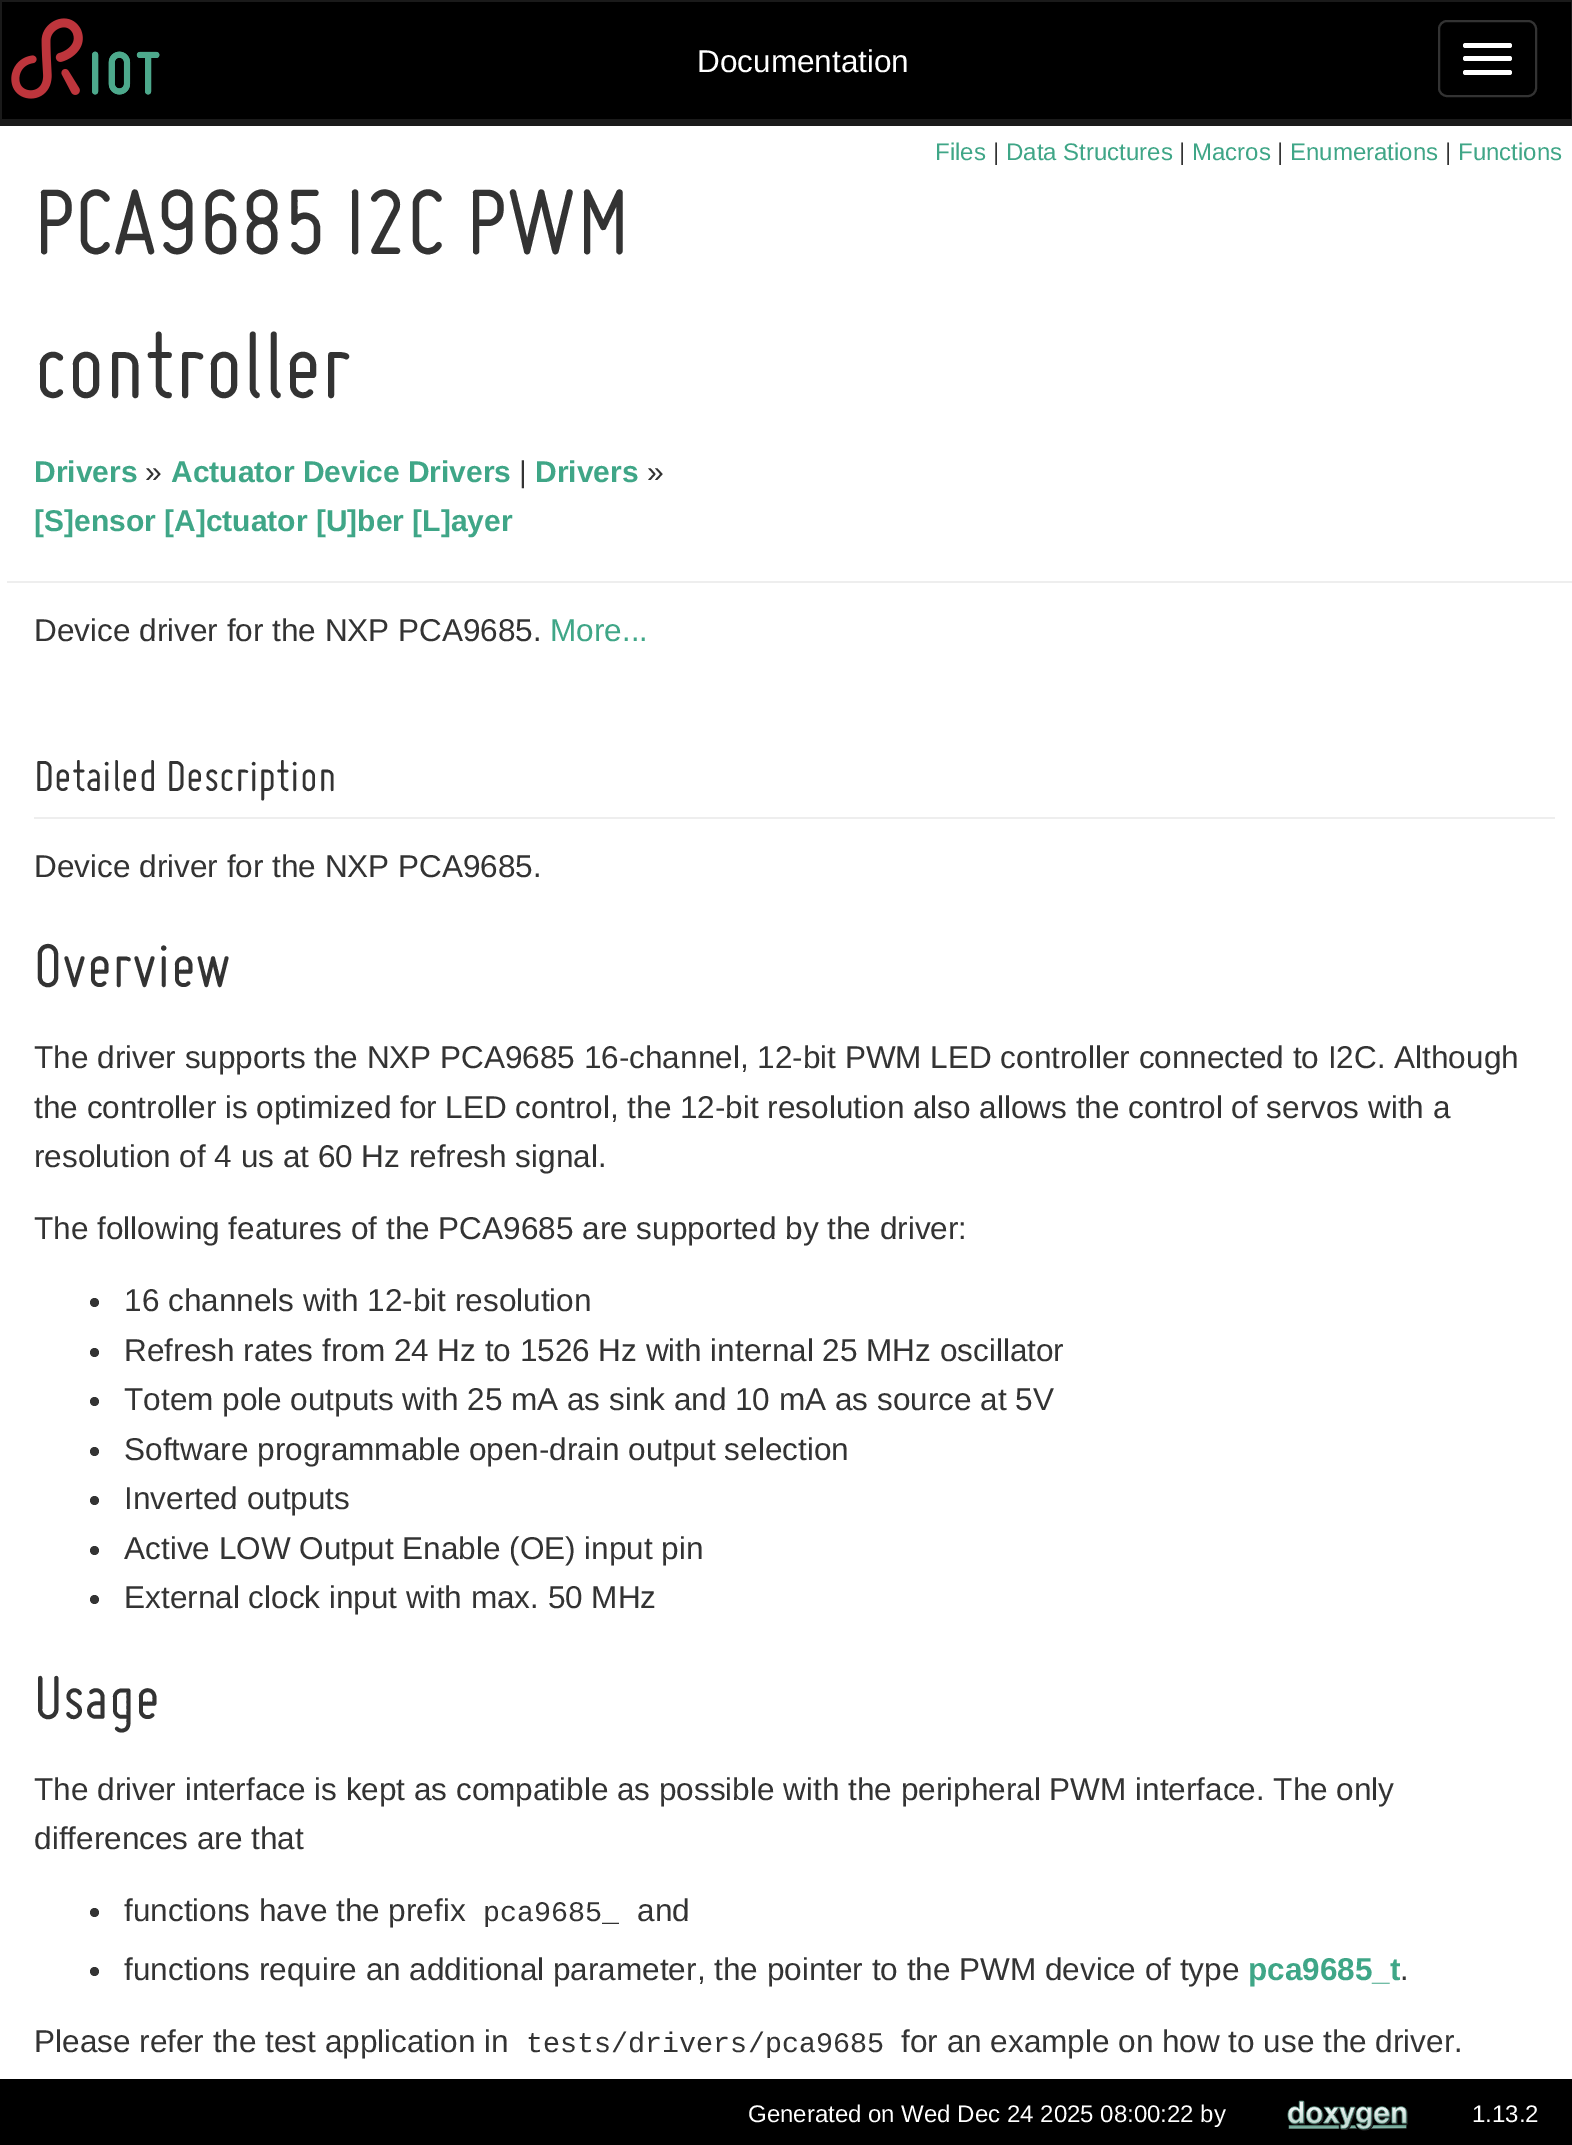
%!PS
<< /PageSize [1572 2145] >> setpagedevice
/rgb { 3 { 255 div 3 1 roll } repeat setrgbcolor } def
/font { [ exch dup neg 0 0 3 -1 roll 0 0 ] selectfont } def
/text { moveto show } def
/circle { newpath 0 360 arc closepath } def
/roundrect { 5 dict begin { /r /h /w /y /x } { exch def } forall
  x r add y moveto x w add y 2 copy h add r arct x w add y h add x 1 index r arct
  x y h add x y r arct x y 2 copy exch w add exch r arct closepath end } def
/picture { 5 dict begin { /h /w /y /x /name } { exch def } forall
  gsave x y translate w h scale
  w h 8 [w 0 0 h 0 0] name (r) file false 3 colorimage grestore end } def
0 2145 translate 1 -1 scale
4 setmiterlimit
255 255 255 rgb
0 0 1572 2145 rectfill
0 0 0 rgb
2 2 1569 117 rectfill
26 26 26 rgb
0 0 1572 2 rectfill
1571 0 1 126 rectfill
0 119 1572 7 rectfill
0 0 2 126 rectfill
(img_01.rgb) 11 18 149 81 picture
51 51 51 rgb
2 setlinewidth
1439 21 97 75 8 roundrect stroke
255 255 255 rgb
1463 43 49 5 2.5 roundrect fill
1463 56 49 5 2.5 roundrect fill
1463 70 49 5 2.5 roundrect fill
238 238 238 rgb
7 581 1565 2 rectfill
34 817 1521 2 rectfill
51 51 51 rgb
94.5 1302.5 4.5 circle fill
94.5 1352.5 4.5 circle fill
94.5 1401.5 4.5 circle fill
94.5 1451.5 4.5 circle fill
94.5 1500.5 4.5 circle fill
94.5 1550.5 4.5 circle fill
94.5 1599.5 4.5 circle fill
94.5 1912.5 4.5 circle fill
94.5 1971.5 4.5 circle fill
0 0 0 rgb
0 2079 1572 66 rectfill
(img_02.rgb) 1287 2100 121 31 picture
/LiberationSans-Regular 31.5 font
255 255 255 rgb
(Documentation) 697 72 text
/LiberationSans-Regular 24 font
63 166 135 rgb
(Files) 935 160 text
51 51 51 rgb
(|) 993 160 text
63 166 135 rgb
(Data Structures) 1006 160 text
51 51 51 rgb
(|) 1179 160 text
63 166 135 rgb
(Macros) 1192 160 text
51 51 51 rgb
(|) 1277 160 text
63 166 135 rgb
(Enumerations) 1290 160 text
51 51 51 rgb
(|) 1445 160 text
63 166 135 rgb
(Functions) 1458 160 text
/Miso-Regular 101.25 font
51 51 51 rgb
(PCA9685 I2C PWM) 34 254 text
(controller) 34 398 text
/LiberationSans-Bold 30 font
63 166 135 rgb
(Drivers) 34 482 text
/LiberationSans-Regular 30 font
51 51 51 rgb
(») 145 482 text
/LiberationSans-Bold 30 font
63 166 135 rgb
(Actuator Device Drivers) 171 482 text
/LiberationSans-Regular 30 font
51 51 51 rgb
(|) 519 482 text
/LiberationSans-Bold 30 font
63 166 135 rgb
(Drivers) 535 482 text
/LiberationSans-Regular 30 font
51 51 51 rgb
(») 647 482 text
/LiberationSans-Bold 30 font
63 166 135 rgb
([S]ensor [A]ctuator [U]ber [L]ayer) 34 531 text
/LiberationSans-Regular 31.5 font
51 51 51 rgb
(Device driver for the NXP PCA9685.) 34 641 text
63 166 135 rgb
(More...) 550 641 text
/Miso-Regular 47.25 font
51 51 51 rgb
(Detailed Description) 34 791 text
/LiberationSans-Regular 31.5 font
(Device driver for the NXP PCA9685.) 34 877 text
/Miso-Regular 67.5 font
(Overview) 34 987 text
/LiberationSans-Regular 31.5 font
(The driver supports the NXP PCA9685 16-channel, 12-bit PWM LED controller connected to I2C. Although) 34 1068 text
(the controller is optimized for LED control, the 12-bit resolution also allows the control of servos with a) 34 1118 text
(resolution of 4 us at 60 Hz refresh signal.) 34 1167 text
(The following features of the PCA9685 are supported by the driver:) 34 1239 text
(16 channels with 12-bit resolution) 124 1311 text
(Refresh rates from 24 Hz to 1526 Hz with internal 25 MHz oscillator) 124 1361 text
(Totem pole outputs with 25 mA as sink and 10 mA as source at 5V) 124 1410 text
(Software programmable open-drain output selection) 124 1460 text
(Inverted outputs) 124 1509 text
(Active LOW Output Enable \(OE\) input pin) 124 1559 text
(External clock input with max. 50 MHz) 124 1608 text
/Miso-Regular 67.5 font
(Usage) 34 1719 text
/LiberationSans-Regular 31.5 font
(The driver interface is kept as compatible as possible with the peripheral PWM interface. The only) 34 1800 text
(differences are that) 34 1849 text
(functions have the prefix) 124 1921 text
/LiberationMono-Regular 28.4 font
(pca9685_) 483 1921 text
/LiberationSans-Regular 31.5 font
(and) 637 1921 text
(functions require an additional parameter, the pointer to the PWM device of type) 124 1980 text
/LiberationSans-Bold 31.5 font
63 166 135 rgb
(pca9685_t) 1248 1980 text
/LiberationSans-Regular 31.5 font
51 51 51 rgb
(.) 1400 1980 text
(Please refer the test application in) 34 2052 text
/LiberationMono-Regular 28.4 font
(tests/drivers/pca9685) 526 2052 text
/LiberationSans-Regular 31.5 font
(for an example on how to use the driver.) 901 2052 text
/LiberationSans-Regular 24 font
255 255 255 rgb
(Generated on Wed Dec 24 2025 08:00:22 by) 748 2122 text
(1.13.2) 1472 2122 text
showpage
